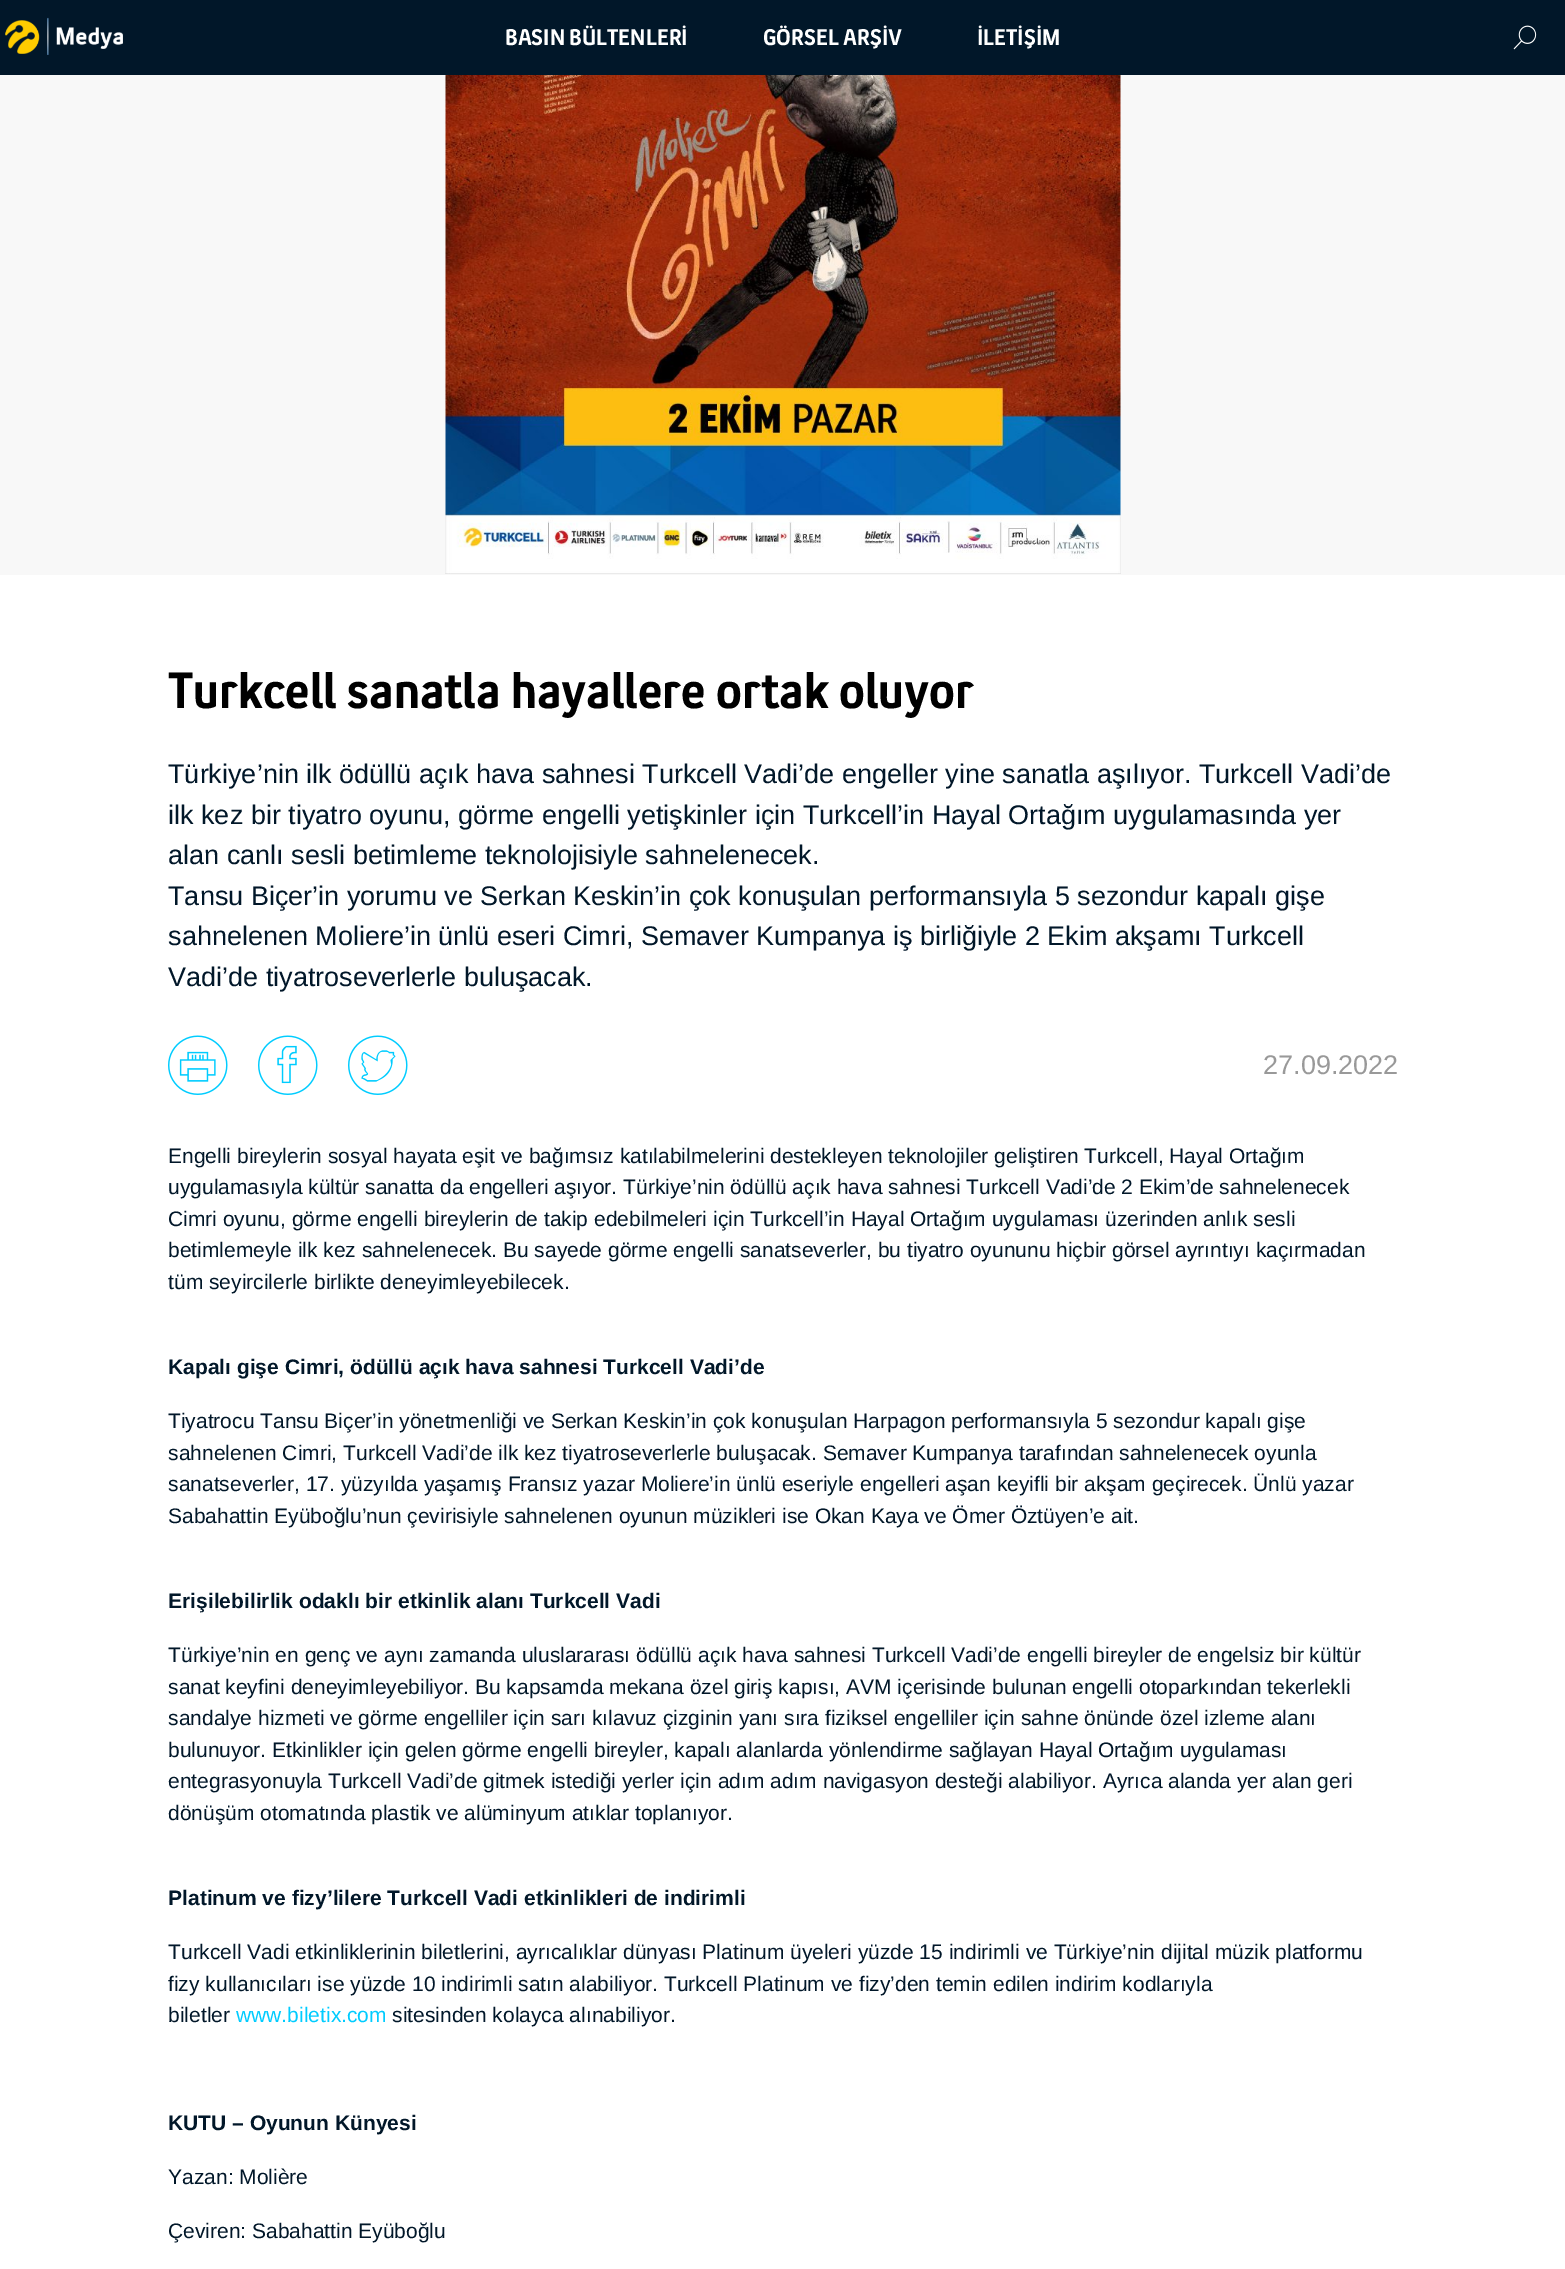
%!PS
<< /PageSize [1565 2269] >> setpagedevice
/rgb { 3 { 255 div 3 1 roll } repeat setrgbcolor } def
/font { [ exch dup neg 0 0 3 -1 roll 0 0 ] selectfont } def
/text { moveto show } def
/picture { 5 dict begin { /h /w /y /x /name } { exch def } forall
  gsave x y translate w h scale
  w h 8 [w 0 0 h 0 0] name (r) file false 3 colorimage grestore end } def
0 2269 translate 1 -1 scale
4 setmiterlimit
255 255 255 rgb
0 0 1565 2269 rectfill
1 23 41 rgb
0 0 1565 75 rectfill
(img_01.rgb) 5 17 118 38 picture
(img_02.rgb) 1513 25 24 25 picture
248 248 248 rgb
0 75 1565 500 rectfill
(img_03.rgb) 445 75 676 499 picture
(img_04.rgb) 168 1035 60 60 picture
(img_05.rgb) 258 1035 60 60 picture
(img_06.rgb) 348 1035 60 60 picture
/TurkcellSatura-Bold 24 font
255 255 255 rgb
(BASIN BÜLTENLERİ) 505 45 text
(GÖRSEL ARŞİV) 763 45 text
(İLETİŞİM) 977 45 text
/TurkcellSatura-Bold 54 font
0 0 0 rgb
(Turkcell sanatla hayallere ortak oluyor) 168 708 text
/LiberationSans-Regular 27 font
1 23 41 rgb
(Türkiye’nin ilk ödüllü açık hava sahnesi Turkcell Vadi’de engeller yine sanatla aşılıyor. Turkcell Vadi’de) 168 783 text
(ilk kez bir tiyatro oyunu, görme engelli yetişkinler için Turkcell’in Hayal Ortağım uygulamasında yer) 168 824 text
(alan canlı sesli betimleme teknolojisiyle sahnelenecek.) 168 864 text
(Tansu Biçer’in yorumu ve Serkan Keskin’in çok konuşulan performansıyla 5 sezondur kapalı gişe) 168 905 text
(sahnelenen Moliere’in ünlü eseri Cimri, Semaver Kumpanya iş birliğiyle 2 Ekim akşamı Turkcell) 168 945 text
(Vadi’de tiyatroseverlerle buluşacak.) 168 986 text
153 153 153 rgb
(27.09.2022) 1263 1074 text
/LiberationSans-Regular 21 font
1 23 41 rgb
(Engelli bireylerin sosyal hayata eşit ve bağımsız katılabilmelerini destekleyen teknolojiler geliştiren Turkcell, Hayal Ortağım) 168 1163 text
(uygulamasıyla kültür sanatta da engelleri aşıyor. Türkiye’nin ödüllü açık hava sahnesi Turkcell Vadi’de 2 Ekim’de sahnelenecek) 168 1194 text
(Cimri oyunu, görme engelli bireylerin de takip edebilmeleri için Turkcell’in Hayal Ortağım uygulaması üzerinden anlık sesli) 168 1226 text
(betimlemeyle ilk kez sahnelenecek. Bu sayede görme engelli sanatseverler, bu tiyatro oyununu hiçbir görsel ayrıntıyı kaçırmadan) 168 1257 text
(tüm seyircilerle birlikte deneyimleyebilecek.) 168 1289 text
/LiberationSans-Bold 21 font
(Kapalı gişe Cimri, ödüllü açık hava sahnesi Turkcell Vadi’de) 168 1374 text
/LiberationSans-Regular 21 font
(Tiyatrocu Tansu Biçer’in yönetmenliği ve Serkan Keskin’in çok konuşulan Harpagon performansıyla 5 sezondur kapalı gişe) 168 1428 text
(sahnelenen Cimri, Turkcell Vadi’de ilk kez tiyatroseverlerle buluşacak. Semaver Kumpanya tarafından sahnelenecek oyunla) 168 1460 text
(sanatseverler, 17. yüzyılda yaşamış Fransız yazar Moliere’in ünlü eseriyle engelleri aşan keyifli bir akşam geçirecek. Ünlü yazar) 168 1491 text
(Sabahattin Eyüboğlu’nun çevirisiyle sahnelenen oyunun müzikleri ise Okan Kaya ve Ömer Öztüyen’e ait.) 168 1523 text
/LiberationSans-Bold 21 font
(Erişilebilirlik odaklı bir etkinlik alanı Turkcell Vadi) 168 1608 text
/LiberationSans-Regular 21 font
(Türkiye’nin en genç ve aynı zamanda uluslararası ödüllü açık hava sahnesi Turkcell Vadi’de engelli bireyler de engelsiz bir kültür) 168 1662 text
(sanat keyfini deneyimleyebiliyor. Bu kapsamda mekana özel giriş kapısı, AVM içerisinde bulunan engelli otoparkından tekerlekli) 168 1694 text
(sandalye hizmeti ve görme engelliler için sarı kılavuz çizginin yanı sıra fiziksel engelliler için sahne önünde özel izleme alanı) 168 1725 text
(bulunuyor. Etkinlikler için gelen görme engelli bireyler, kapalı alanlarda yönlendirme sağlayan Hayal Ortağım uygulaması) 168 1757 text
(entegrasyonuyla Turkcell Vadi’de gitmek istediği yerler için adım adım navigasyon desteği alabiliyor. Ayrıca alanda yer alan geri) 168 1788 text
(dönüşüm otomatında plastik ve alüminyum atıklar toplanıyor.) 168 1820 text
/LiberationSans-Bold 21 font
(Platinum ve fizy’lilere Turkcell Vadi etkinlikleri de indirimli) 168 1905 text
/LiberationSans-Regular 21 font
(Turkcell Vadi etkinliklerinin biletlerini, ayrıcalıklar dünyası Platinum üyeleri yüzde 15 indirimli ve Türkiye’nin dijital müzik platformu) 168 1959 text
(fizy kullanıcıları ise yüzde 10 indirimli satın alabiliyor. Turkcell Platinum ve fizy’den temin edilen indirim kodlarıyla) 168 1991 text
(biletler) 168 2022 text
0 204 255 rgb
(www.biletix.com) 236 2022 text
1 23 41 rgb
(sitesinden kolayca alınabiliyor.) 392 2022 text
/LiberationSans-Bold 21 font
(KUTU – Oyunun Künyesi) 168 2130 text
/LiberationSans-Regular 21 font
(Yazan: Molière) 168 2184 text
(Çeviren: Sabahattin Eyüboğlu) 168 2238 text
showpage
